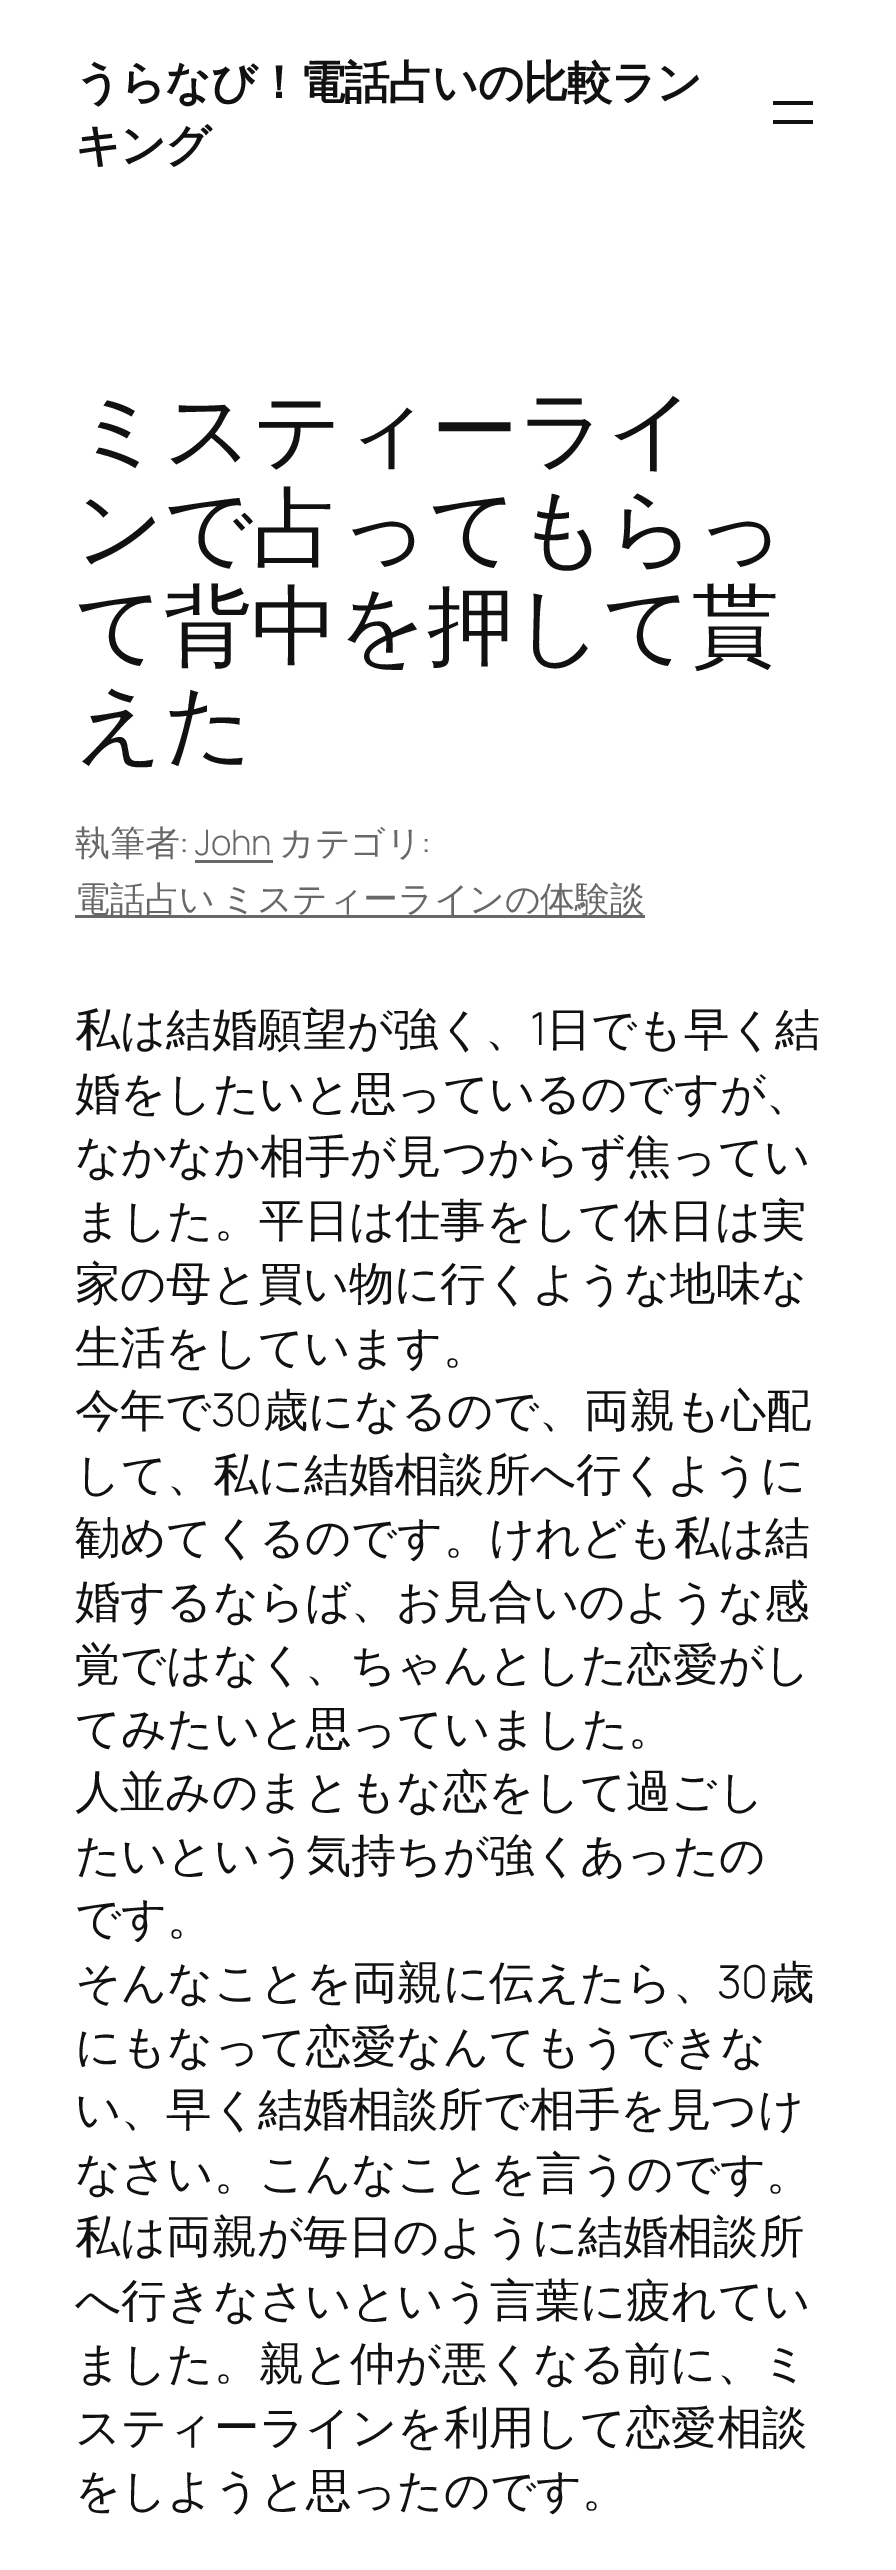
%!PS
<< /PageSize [896 2570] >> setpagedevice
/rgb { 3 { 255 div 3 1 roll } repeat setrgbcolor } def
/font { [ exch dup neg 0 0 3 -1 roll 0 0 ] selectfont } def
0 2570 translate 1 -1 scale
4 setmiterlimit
255 255 255 rgb
0 0 896 2570 rectfill
17 17 17 rgb
773 101 40 4 rectfill
773 120 40 4 rectfill
104 104 104 rgb
195 860 78 3 rectfill
75 915 570 3 rectfill
/WenQuanYiZenHei-Bold 45.4 font
17 17 17 rgb
75 98 moveto -1.25 0 (うらなび！電話占いの比較ラン) ashow
75 161 moveto -1.25 0 (キング) ashow
/WenQuanYiZenHei-Medium 87.25 font
75 460 moveto -0.25 0 (ミスティーライ) ashow
75 558 moveto -0.25 0 (ンで占ってもらっ) ashow
75 656 moveto -0.25 0 (て背中を押して貰) ashow
75 754 moveto -0.25 0 (えた) ashow
/WenQuanYiZenHei-Medium 35 font
104 104 104 rgb
75 855 moveto -0.25 0 (執筆者) ashow
/Manrope-Light 35 font
179 855 moveto -0.25 0 (: John) ashow
/WenQuanYiZenHei-Medium 35 font
279 855 moveto -0.25 0 (カテゴリ) ashow
/Manrope-Light 35 font
421 855 moveto -0.25 0 (:) ashow
/WenQuanYiZenHei-Medium 35 font
75 911 moveto -4 0 32 -0.25 0 (電話占い ミスティーラインの体験談) awidthshow
/WenQuanYiZenHei-Medium 45.4 font
17 17 17 rgb
75 1045 moveto -0.25 0 (私は結婚願望が強く、) ashow
/Manrope-Light 45.4 font
530 1045 moveto -0.25 0 (1) ashow
/WenQuanYiZenHei-Medium 45.4 font
546 1045 moveto -0.25 0 (日でも早く結) ashow
75 1109 moveto -0.25 0 (婚をしたいと思っているのですが、) ashow
75 1172 moveto -0.25 0 (なかなか相手が見つからず焦ってい) ashow
75 1236 moveto -0.25 0 (ました。平日は仕事をして休日は実) ashow
75 1299 moveto -0.25 0 (家の母と買い物に行くような地味な) ashow
75 1363 moveto -0.25 0 (生活をしています。) ashow
75 1426 moveto -0.25 0 (今年で) ashow
/Manrope-Light 45.4 font
211 1426 moveto -0.25 0 (30) ashow
/WenQuanYiZenHei-Medium 45.4 font
263 1426 moveto -0.25 0 (歳になるので、両親も心配) ashow
75 1490 moveto -0.25 0 (して、私に結婚相談所へ行くように) ashow
75 1553 moveto -0.25 0 (勧めてくるのです。けれども私は結) ashow
75 1617 moveto -0.25 0 (婚するならば、お見合いのような感) ashow
75 1680 moveto -0.25 0 (覚ではなく、ちゃんとした恋愛がし) ashow
75 1744 moveto -0.25 0 (てみたいと思っていました。) ashow
75 1807 moveto -0.25 0 (人並みのまともな恋をして過ごし) ashow
75 1871 moveto -0.25 0 (たいという気持ちが強くあったの) ashow
75 1934 moveto -0.25 0 (です。) ashow
75 1998 moveto -0.25 0 (そんなことを両親に伝えたら、) ashow
/Manrope-Light 45.4 font
717 1998 moveto -0.25 0 (30) ashow
/WenQuanYiZenHei-Medium 45.4 font
769 1998 moveto -0.25 0 (歳) ashow
75 2062 moveto -0.25 0 (にもなって恋愛なんてもうできな) ashow
75 2125 moveto -0.25 0 (い、早く結婚相談所で相手を見つけ) ashow
75 2189 moveto -0.25 0 (なさい。こんなことを言うのです。) ashow
75 2252 moveto -0.25 0 (私は両親が毎日のように結婚相談所) ashow
75 2316 moveto -0.25 0 (へ行きなさいという言葉に疲れてい) ashow
75 2379 moveto -0.25 0 (ました。親と仲が悪くなる前に、ミ) ashow
75 2443 moveto -0.25 0 (スティーラインを利用して恋愛相談) ashow
75 2506 moveto -0.25 0 (をしようと思ったのです。) ashow
showpage
